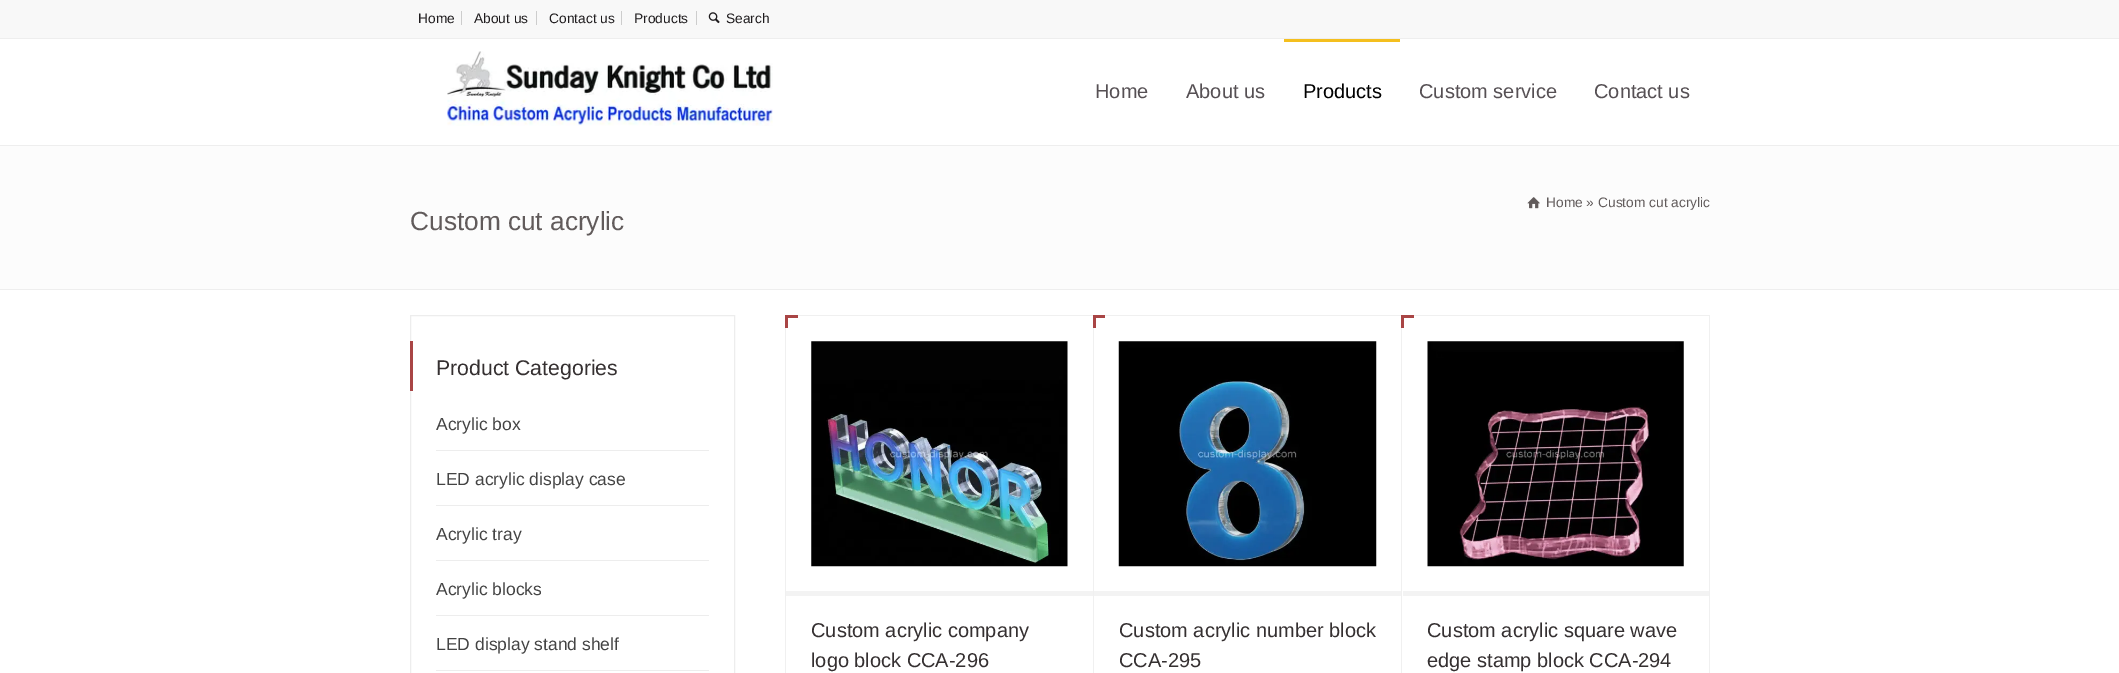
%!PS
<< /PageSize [2119 673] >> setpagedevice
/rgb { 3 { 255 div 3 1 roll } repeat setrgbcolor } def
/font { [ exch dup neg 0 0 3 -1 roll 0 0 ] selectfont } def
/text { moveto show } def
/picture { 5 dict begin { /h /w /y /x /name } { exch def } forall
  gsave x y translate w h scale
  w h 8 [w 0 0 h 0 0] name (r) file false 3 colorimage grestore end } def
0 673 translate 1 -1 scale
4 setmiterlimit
255 255 255 rgb
0 0 2119 673 rectfill
248 248 248 rgb
0 0 2119 38 rectfill
238 238 238 rgb
0 38 2119 1 rectfill
205 205 205 rgb
461 11 1 14 rectfill
536 11 1 14 rectfill
621 11 1 14 rectfill
696 11 1 14 rectfill
(img_01.rgb) 708 12 12 12 picture
(img_02.rgb) 447 51 326 75 picture
244 191 30 rgb
1284 39 116 3 rectfill
252 252 252 rgb
0 146 2119 143 rectfill
238 238 238 rgb
0 145 2119 1 rectfill
0 289 2119 1 rectfill
(img_03.rgb) 1527 197 13 12 picture
237 237 237 rgb
410.5 315.5 324 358 rectstroke
169 69 69 rgb
410 341 3 50 rectfill
237 237 237 rgb
436 450 273 1 rectfill
436 505 273 1 rectfill
436 560 273 1 rectfill
436 615 273 1 rectfill
436 670 273 1 rectfill
240 240 240 rgb
798 315 295 1 rectfill
785 328 1 345 rectfill
243 243 243 rgb
786 321 moveto 0 275 rlineto 307 0 rlineto 0 -275 rlineto -1 0 rlineto 0 270 rlineto -306 0 rlineto closepath fill
169 69 69 rgb
785 315 3 13 rectfill
785 315 13 3 rectfill
255 255 255 rgb
1092 321 1 270 rectfill
(img_04.rgb) 811 341 257 226 picture
240 240 240 rgb
1105 315 296 1 rectfill
1093 328 1 345 rectfill
169 69 69 rgb
1093 315 3 13 rectfill
1093 315 12 3 rectfill
243 243 243 rgb
1094 591 307 5 rectfill
(img_05.rgb) 1118 341 259 226 picture
240 240 240 rgb
1709 315 1 358 rectfill
1414 315 295 1 rectfill
1401 328 1 345 rectfill
169 69 69 rgb
1401 315 3 13 rectfill
1401 315 13 3 rectfill
243 243 243 rgb
1403 591 moveto 0 5 rlineto 306 0 rlineto 0 -275 rlineto 0 270 rlineto closepath fill
(img_06.rgb) 1427 341 257 226 picture
/LiberationSans-Regular 13.75 font
31 28 30 rgb
(Home) 418 23 text
(About us) 474 23 text
(Contact us) 549 23 text
(Products) 634 23 text
(Search) 726 23 text
/LiberationSans-Regular 20 font
86 80 84 rgb
(Home) 1095 98 text
(About us) 1186 98 text
1 1 1 rgb
(Products) 1303 98 text
86 80 84 rgb
(Custom service) 1419 98 text
(Contact us) 1594 98 text
/LiberationSans-Regular 13.75 font
97 91 91 rgb
(Home » Custom cut acrylic) 1546 207 text
/LiberationSans-Regular 26.25 font
(Custom cut acrylic) 410 230 text
/LiberationSans-Regular 21.25 font
53 48 49 rgb
(Product Categories) 436 375 text
/LiberationSans-Regular 17.5 font
68 68 68 rgb
(Acrylic box) 436 430 text
(LED acrylic display case) 436 485 text
(Acrylic tray) 436 540 text
(Acrylic blocks) 436 595 text
(LED display stand shelf) 436 650 text
/LiberationSans-Regular 20 font
53 48 49 rgb
(Custom acrylic company) 811 637 text
(logo block CCA-296) 811 667 text
(Custom acrylic number block) 1119 637 text
(CCA-295) 1119 667 text
(Custom acrylic square wave) 1427 637 text
(edge stamp block CCA-294) 1427 667 text
showpage
